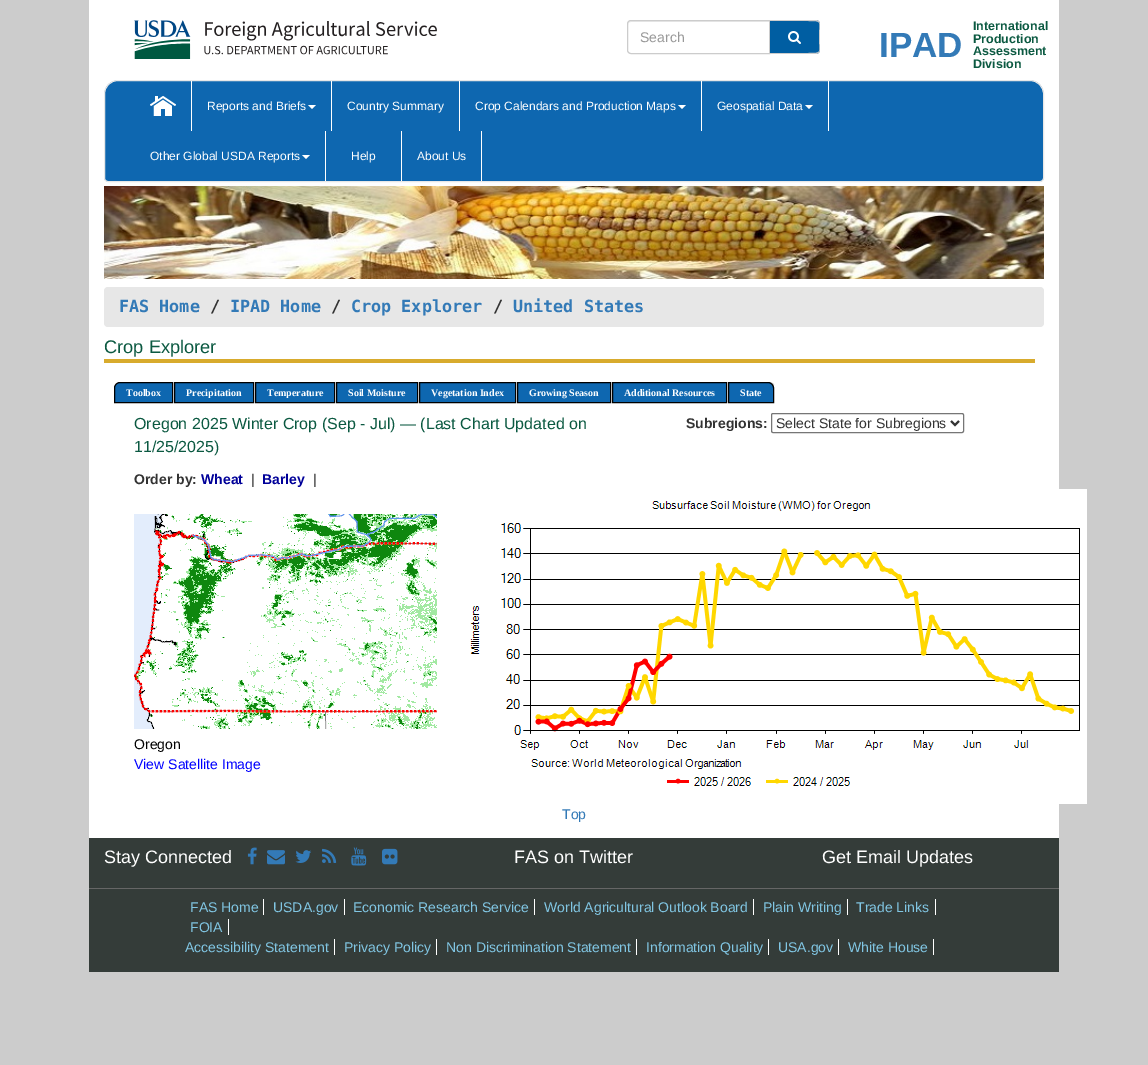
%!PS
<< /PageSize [1148 1065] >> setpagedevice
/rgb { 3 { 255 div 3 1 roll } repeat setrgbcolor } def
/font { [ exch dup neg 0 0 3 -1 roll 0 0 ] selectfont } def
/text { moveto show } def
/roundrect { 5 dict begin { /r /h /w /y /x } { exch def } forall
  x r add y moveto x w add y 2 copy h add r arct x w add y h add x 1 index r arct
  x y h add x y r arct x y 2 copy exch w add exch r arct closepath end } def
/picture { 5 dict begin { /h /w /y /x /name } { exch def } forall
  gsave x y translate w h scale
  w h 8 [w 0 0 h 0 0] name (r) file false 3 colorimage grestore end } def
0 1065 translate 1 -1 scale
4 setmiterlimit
204 204 204 rgb
0 0 1148 1065 rectfill
255 255 255 rgb
89 0 970 838 rectfill
(img_01.rgb) 134 20 303 39 picture
236 236 236 rgb
631 22 moveto 138 0 rlineto 0 -1 rlineto -138 0 rlineto -2 0 -3 2 -3 4 rcurveto 0 -2 1 -3 3 -3 rcurveto closepath fill
204 204 204 rgb
631 20.5 moveto 138.5 0 rlineto 0 33 rlineto -138.5 0 rlineto -2 0 -3.5 -1.5 -3.5 -3.5 rcurveto 0 -26 rlineto 0 -2 1.5 -3.5 3.5 -3.5 rcurveto closepath stroke
0 94 162 rgb
770 20 moveto 46 0 rlineto 2 0 4 2 4 4 rcurveto 0 26 rlineto 0 2 -2 4 -4 4 rcurveto -46 0 rlineto closepath fill
204 204 204 rgb
770 20 moveto 46 0 rlineto 2 0 4 2 4 4 rcurveto 0 26 rlineto 0 2 -2 4 -4 4 rcurveto -46 0 rlineto closepath 770 21 moveto 38 0 rlineto 15 0 11 0 11 16 rcurveto 0 16 4 16 -11 16 rcurveto -38 0 rlineto closepath eofill
(img_02.rgb) 788 31 13 13 picture
14 103 176 rgb
118 80.5 moveto 912 0 rlineto 7.5 0 13.5 6 13.5 13.5 rcurveto 0 84 rlineto 0 2 -1.5 3.5 -3.5 3.5 rcurveto -932 0 rlineto -2 0 -3.5 -1.5 -3.5 -3.5 rcurveto 0 -84 rlineto 0 -7.5 6 -13.5 13.5 -13.5 rcurveto closepath gsave fill grestore
231 231 231 rgb
stroke
255 255 255 rgb
191 81 1 50 rectfill
(img_03.rgb) 150 96 26 20 picture
331 81 1 50 rectfill
308 105 moveto 8 0 rlineto -4 4 rlineto closepath fill
459 81 1 50 rectfill
701 81 1 50 rectfill
678 105 moveto 8 0 rlineto -4 4 rlineto closepath fill
828 81 1 50 rectfill
805 105 moveto 8 0 rlineto -4 4 rlineto closepath fill
325 131 1 50 rectfill
302 155 moveto 8 0 rlineto -4 4 rlineto closepath fill
401 131 1 50 rectfill
481 131 1 50 rectfill
(img_04.rgb) 104 186 940 93 picture
231 231 231 rgb
104 287 940 40 4 roundrect fill
216 171 45 rgb
104 359 931 4 rectfill
14 103 176 rgb
120 382.5 moveto 52.5 0 rlineto 0 20 rlineto -58 0 rlineto 0 -14.5 rlineto 0 -3 2.5 -5.5 5.5 -5.5 rcurveto closepath gsave fill grestore
0 0 0 rgb
stroke
14 103 176 rgb
174.5 382.5 moveto 79 0 rlineto 0 20 rlineto -79 0 rlineto closepath gsave fill grestore
0 0 0 rgb
stroke
14 103 176 rgb
255.5 382.5 moveto 79 0 rlineto 0 20 rlineto -79 0 rlineto closepath gsave fill grestore
0 0 0 rgb
stroke
14 103 176 rgb
336.5 382.5 moveto 81 0 rlineto 0 20 rlineto -81 0 rlineto closepath gsave fill grestore
0 0 0 rgb
stroke
14 103 176 rgb
419.5 382.5 moveto 96 0 rlineto 0 20 rlineto -96 0 rlineto closepath gsave fill grestore
0 0 0 rgb
stroke
14 103 176 rgb
517.5 382.5 moveto 93 0 rlineto 0 20 rlineto -93 0 rlineto closepath gsave fill grestore
0 0 0 rgb
stroke
14 103 176 rgb
612.5 382.5 moveto 114 0 rlineto 0 20 rlineto -114 0 rlineto closepath gsave fill grestore
0 0 0 rgb
stroke
200 200 200 rgb
728 382 moveto 41 0 rlineto 3.5 0 6 2.5 6 6 rcurveto 0 15 rlineto -47 0 rlineto closepath fill
255 255 255 rgb
774 385 1 18 rectfill
14 103 176 rgb
728.5 382.5 moveto 39.5 0 rlineto 3 0 5.5 2.5 5.5 5.5 rcurveto 0 14.5 rlineto -45 0 rlineto closepath gsave fill grestore
0 0 0 rgb
stroke
118 118 118 rgb
771.5 413.5 192 19 1.5 roundrect stroke
51 51 51 rgb
2 setlinewidth
951 421 moveto 4 4 rlineto 4 -4 rlineto stroke
(img_05.rgb) 134 514 303 215 picture
(img_06.rgb) 437 489 650 315 picture
52 60 57 rgb
89 838 970 50 rectfill
(img_07.rgb) 247 847 10 18 picture
(img_08.rgb) 267 850 18 15 picture
(img_09.rgb) 295 850 17 13 picture
(img_10.rgb) 322 848 15 15 picture
(img_11.rgb) 351 847 16 19 picture
(img_12.rgb) 382 848 16 17 picture
89 889 970 83 rectfill
102 102 102 rgb
89 888 970 1 rectfill
255 255 255 rgb
263 899 1 16 rectfill
344 899 1 16 rectfill
534 899 1 16 rectfill
753 899 1 16 rectfill
847 899 1 16 rectfill
935 899 1 16 rectfill
228 919 1 16 rectfill
334 939 1 16 rectfill
436 939 1 16 rectfill
636 939 1 16 rectfill
768 939 1 16 rectfill
838 939 1 16 rectfill
933 939 1 16 rectfill
/LiberationSans-Regular 14 font
153 153 153 rgb
(Search) 640 42 text
/LiberationSans-Bold 35 font
51 122 183 rgb
(IPAD) 879 57 text
/LiberationSans-Bold 12.5 font
11 89 65 rgb
(International) 973 30 text
(Production) 973 43 text
(Assessment) 973 55 text
(Division) 973 68 text
/LiberationSans-Regular 12 font
255 255 255 rgb
(Reports and Briefs) 207 110 text
(Country Summary) 347 110 text
(Crop Calendars and Production Maps) 475 110 text
(Geospatial Data) 717 110 text
(Other Global USDA Reports) 150 160 text
(Help) 351 160 text
(About Us) 417 160 text
/DejaVuSansMono-Bold 16.75 font
51 122 183 rgb
(FAS Home) 119 312 text
51 51 51 rgb
(/) 210 312 text
51 122 183 rgb
(IPAD Home) 230 312 text
51 51 51 rgb
(/) 331 312 text
51 122 183 rgb
(Crop Explorer) 351 312 text
51 51 51 rgb
(/) 493 312 text
51 122 183 rgb
(United States) 513 312 text
/LiberationSans-Regular 18.25 font
11 89 65 rgb
(Crop Explorer) 104 353 text
/LiberationSerif-Bold 10 font
255 255 255 rgb
(Toolbox) 126 396 text
(Precipitation) 186 396 text
(Temperature) 267 396 text
(Soil Moisture) 348 396 text
(Vegetation Index) 431 396 text
(Growing Season) 529 396 text
(Additional Resources) 624 396 text
(State) 740 396 text
/LiberationSans-Regular 16 font
11 89 65 rgb
(Oregon 2025 Winter Crop \(Sep - Jul\) — \(Last Chart Updated on) 134 429 text
(11/25/2025\)) 134 452 text
/LiberationSans-Bold 14 font
51 51 51 rgb
(Subregions:) 686 428 text
/LiberationSans-Regular 14 font
(Select State for Subregions) 776 428 text
/LiberationSans-Bold 14 font
(Order by:) 134 484 text
0 0 153 rgb
(Wheat) 201 484 text
/LiberationSans-Regular 14 font
51 51 51 rgb
(|) 251 484 text
/LiberationSans-Bold 14 font
0 0 153 rgb
(Barley) 262 484 text
/LiberationSans-Regular 14 font
51 51 51 rgb
(|) 313 484 text
0 0 0 rgb
(Oregon) 134 749 text
0 0 255 rgb
(View Satellite Image) 134 769 text
51 122 183 rgb
(Top) 562 819 text
/LiberationSans-Regular 18 font
255 255 255 rgb
(Stay Connected) 104 863 text
(FAS on Twitter) 514 863 text
(Get Email Updates) 822 863 text
/LiberationSans-Regular 14 font
129 198 227 rgb
(FAS Home) 190 912 text
(USDA.gov) 273 912 text
(Economic Research Service) 353 912 text
(World Agricultural Outlook Board) 544 912 text
(Plain Writing) 763 912 text
(Trade Links) 856 912 text
(FOIA) 190 932 text
(Accessibility Statement) 185 952 text
(Privacy Policy) 344 952 text
(Non Discrimination Statement) 446 952 text
(Information Quality) 646 952 text
(USA.gov) 778 952 text
(White House) 848 952 text
showpage
